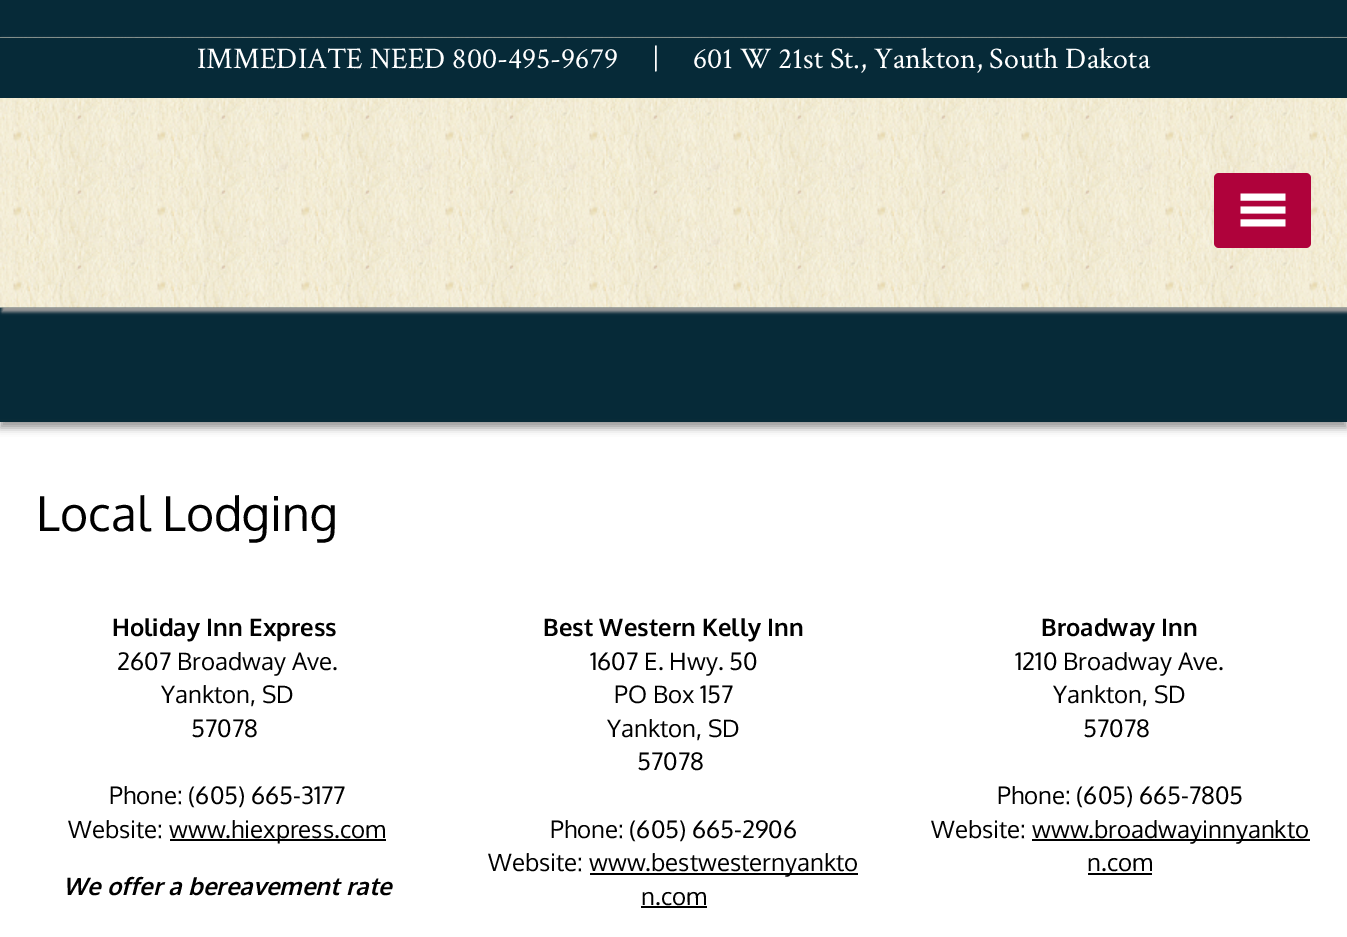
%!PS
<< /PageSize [1347 937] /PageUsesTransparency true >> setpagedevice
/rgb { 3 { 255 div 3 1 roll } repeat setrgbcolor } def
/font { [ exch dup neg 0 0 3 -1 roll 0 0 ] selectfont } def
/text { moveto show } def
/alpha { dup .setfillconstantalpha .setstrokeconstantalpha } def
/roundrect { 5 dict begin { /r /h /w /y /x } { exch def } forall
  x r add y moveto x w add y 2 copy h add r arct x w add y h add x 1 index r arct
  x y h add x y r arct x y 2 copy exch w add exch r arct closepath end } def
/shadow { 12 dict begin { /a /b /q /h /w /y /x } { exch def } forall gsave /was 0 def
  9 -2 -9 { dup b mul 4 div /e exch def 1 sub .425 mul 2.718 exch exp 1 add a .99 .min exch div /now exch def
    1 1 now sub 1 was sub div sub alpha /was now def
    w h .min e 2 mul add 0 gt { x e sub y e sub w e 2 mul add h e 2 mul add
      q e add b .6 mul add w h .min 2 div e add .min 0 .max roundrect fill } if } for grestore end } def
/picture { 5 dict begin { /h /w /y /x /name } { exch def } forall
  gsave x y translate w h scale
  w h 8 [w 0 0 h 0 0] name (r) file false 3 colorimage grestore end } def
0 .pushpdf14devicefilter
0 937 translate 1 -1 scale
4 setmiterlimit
6 42 56 rgb
0 0 1347 937 rectfill
153 153 153 rgb
2 39 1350 273 0 1.5 1 shadow
68 68 68 rgb
0 428 1347 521 0 4 1 shadow
255 255 255 rgb
0 422 1347 515 rectfill
gsave
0 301 moveto 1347 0 rlineto 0 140 rlineto -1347 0 rlineto closepath 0 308 moveto 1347 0 rlineto 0 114 rlineto -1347 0 rlineto closepath eoclip newpath
153 153 153 rgb
0 314 1347 114 0 4 1 shadow
grestore
(img_01.rgb) 0 37 1347 271 picture
6 42 56 rgb
0 38 1347 60 rectfill
175 2 59 rgb
1214 173 97 75 5 roundrect fill
(img_02.rgb) 1240 193 46 34 picture
0.5 alpha
6 42 56 rgb
0 421 1347 1 rectfill
1 alpha
0 0 0 rgb
170 839 216 2 rectfill
590 873 268 2 rectfill
641 906 66 2 rectfill
1032 839 278 2 rectfill
1088 873 64 2 rectfill
/CrimsonText-Regular 30 font
255 255 255 rgb
(IMMEDIATE NEED 800-495-9679     |     601 W 21st St., Yankton, South Dakota) 197 68 text
/Oxygen-Regular 48 font
0 0 0 rgb
(Local Lodging) 36 531 text
/Oxygen-Bold 24 font
(Holiday Inn Express) 112 636 text
/Oxygen-Regular 24 font
(2607 Broadway Ave.) 117 670 text
(Yankton, SD) 161 703 text
(57078) 191 737 text
(Phone: \(605\) 665-3177) 109 804 text
(Website:) 68 838 text
(www.hiexpress.com) 169 838 text
/Oxygen-BoldItalic 24 font
(We offer a bereavement rate) 63 895 text
/Oxygen-Bold 24 font
(Best Western Kelly Inn) 543 636 text
/Oxygen-Regular 24 font
(1607 E. Hwy. 50) 590 670 text
(PO Box 157) 614 703 text
(Yankton, SD) 607 737 text
(57078) 637 770 text
(Phone: \(605\) 665-2906) 550 838 text
(Website:) 488 871 text
(www.bestwesternyankto) 589 871 text
(n.com) 641 905 text
/Oxygen-Bold 24 font
(Broadway Inn) 1041 636 text
/Oxygen-Regular 24 font
(1210 Broadway Ave.) 1015 670 text
(Yankton, SD) 1053 703 text
(57078) 1083 737 text
(Phone: \(605\) 665-7805) 997 804 text
(Website:) 931 838 text
(www.broadwayinnyankto) 1032 838 text
(n.com) 1087 871 text
.poppdf14devicefilter showpage
